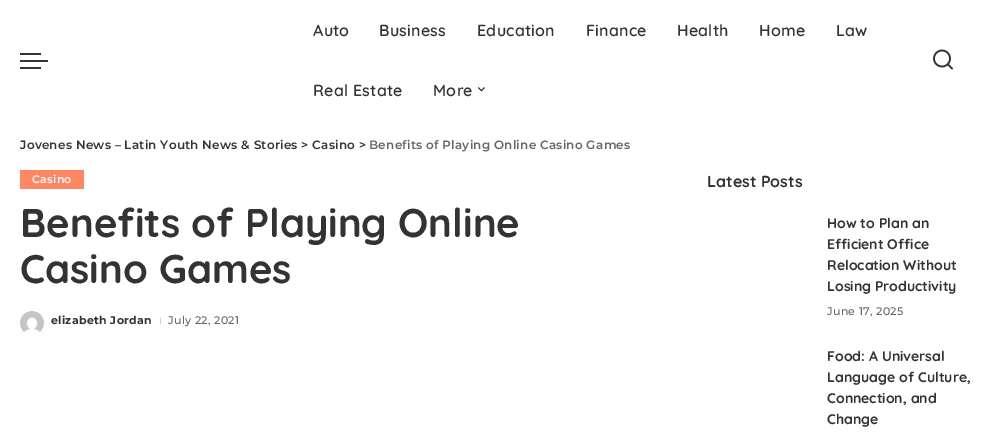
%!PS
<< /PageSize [995 434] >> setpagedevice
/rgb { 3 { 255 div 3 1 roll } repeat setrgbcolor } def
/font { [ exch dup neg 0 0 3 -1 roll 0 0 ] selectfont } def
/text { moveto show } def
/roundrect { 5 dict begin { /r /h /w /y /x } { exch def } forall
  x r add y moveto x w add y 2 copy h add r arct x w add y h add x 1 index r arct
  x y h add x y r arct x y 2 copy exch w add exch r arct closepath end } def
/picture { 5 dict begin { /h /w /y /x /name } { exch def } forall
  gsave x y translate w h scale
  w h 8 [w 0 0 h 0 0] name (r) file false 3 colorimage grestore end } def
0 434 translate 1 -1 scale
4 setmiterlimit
255 255 255 rgb
0 0 995 434 rectfill
51 51 51 rgb
20 60 28 2 1 roundrect fill
20 53 21 2 rectfill
20 67 21 2 rectfill
(img_01.rgb) 477 87 8 5 picture
(img_02.rgb) 933 49 20 21 picture
255 135 99 rgb
20 170 64 19 rectfill
(img_03.rgb) 20 311 24 22 picture
209 209 209 rgb
160 318 1 6 rectfill
/Quicksand-SemiBold 16 font
51 51 51 rgb
313 36 moveto 0.25 0 (Auto) ashow
379 36 moveto 0.25 0 (Business) ashow
477 36 moveto 0.25 0 (Education) ashow
586 36 moveto 0.25 0 (Finance) ashow
677 36 moveto 0.25 0 (Health) ashow
759 36 moveto 0.25 0 (Home) ashow
836 36 moveto 0.25 0 (Law) ashow
313 96 moveto 0.25 0 (Real Estate) ashow
433 96 moveto 0.25 0 (More) ashow
/Montserrat-SemiBold 12 font
20 149 moveto 0.25 0 (Jovenes News – Latin Youth News & Stories > Casino >) ashow
102 102 102 rgb
369 149 moveto 0.25 0 (Benefits of Playing Online Casino Games) ashow
/Montserrat-SemiBold 11 font
255 255 255 rgb
32 183 moveto 0.3 0 (Casino) ashow
/Quicksand-Bold 40 font
51 51 51 rgb
(Benefits of Playing Online) 20 237 text
(Casino Games) 20 283 text
/Montserrat-Bold 11 font
51 324 moveto 0.3 0 (elizabeth Jordan) ashow
/Montserrat-Medium 11 font
102 102 102 rgb
168 324 moveto 0.3 0 (July 22, 2021) ashow
/Quicksand-Bold 16 font
51 51 51 rgb
(Latest Posts) 707 187 text
/Quicksand-Bold 14 font
(How to Plan an) 827 228 text
(Efficient Office) 827 249 text
(Relocation Without) 827 270 text
(Losing Productivity) 827 291 text
/Montserrat-Medium 11 font
102 102 102 rgb
827 315 moveto 0.3 0 (June 17, 2025) ashow
/Quicksand-Bold 14 font
51 51 51 rgb
(Food: A Universal) 827 361 text
(Language of Culture,) 827 382 text
(Connection, and) 827 403 text
(Change) 827 424 text
showpage
